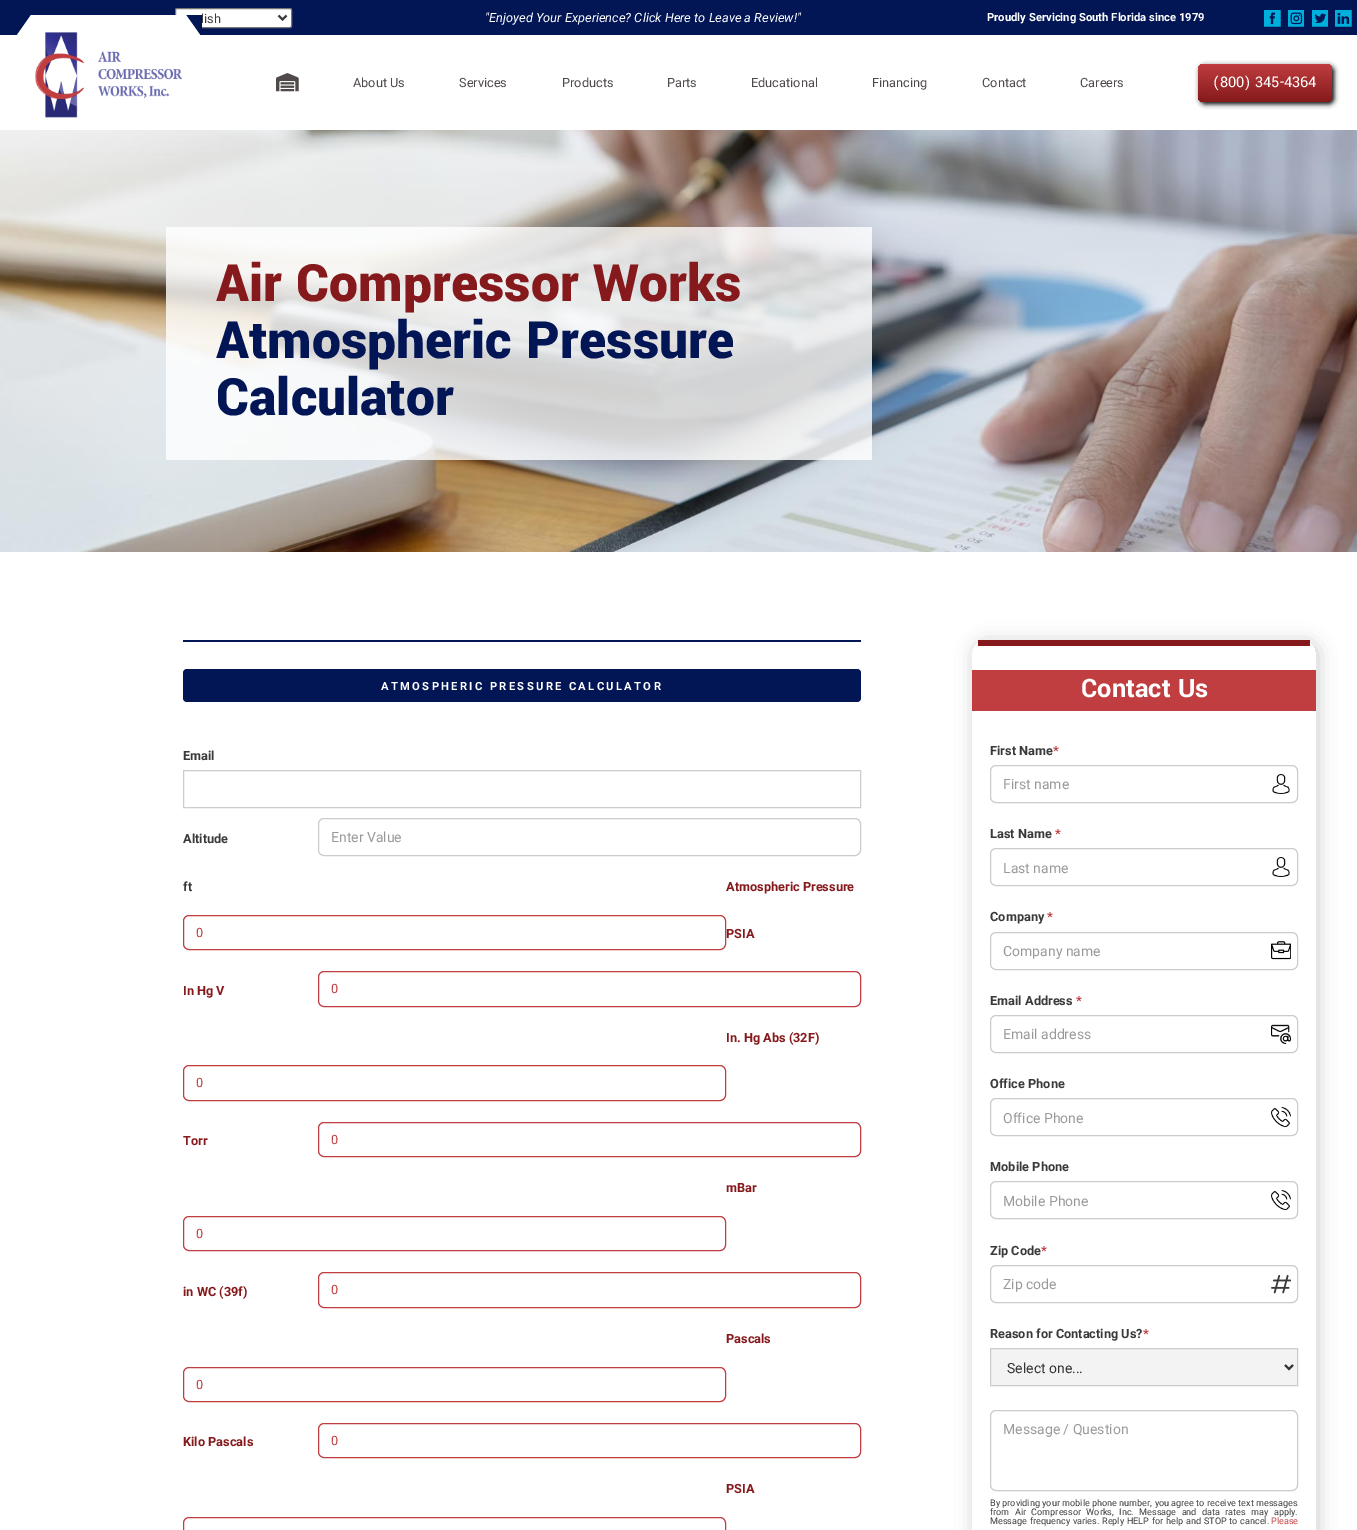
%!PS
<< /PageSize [1357 1530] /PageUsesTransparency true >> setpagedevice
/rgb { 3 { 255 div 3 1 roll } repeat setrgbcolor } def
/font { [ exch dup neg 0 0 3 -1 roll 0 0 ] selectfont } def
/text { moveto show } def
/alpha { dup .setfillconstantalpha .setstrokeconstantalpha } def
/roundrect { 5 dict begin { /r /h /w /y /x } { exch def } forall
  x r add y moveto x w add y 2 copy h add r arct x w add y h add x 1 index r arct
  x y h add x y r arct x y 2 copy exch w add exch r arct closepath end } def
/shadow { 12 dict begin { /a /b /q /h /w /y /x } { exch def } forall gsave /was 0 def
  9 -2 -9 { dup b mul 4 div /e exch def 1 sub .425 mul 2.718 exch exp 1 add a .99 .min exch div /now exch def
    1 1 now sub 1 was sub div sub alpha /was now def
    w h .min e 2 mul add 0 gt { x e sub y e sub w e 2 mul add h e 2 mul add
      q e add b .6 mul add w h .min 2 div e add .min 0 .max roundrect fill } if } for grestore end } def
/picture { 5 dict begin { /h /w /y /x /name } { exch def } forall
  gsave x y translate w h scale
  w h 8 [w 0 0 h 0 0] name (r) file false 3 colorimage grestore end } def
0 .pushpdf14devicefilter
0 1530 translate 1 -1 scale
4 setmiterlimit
255 255 255 rgb
0 0 1357 1530 rectfill
2 21 85 rgb
0 0 1357 35 rectfill
255 255 255 rgb
175.5 8.5 116 19 1.5 roundrect gsave fill grestore
118 118 118 rgb
stroke
58 58 58 rgb
2 setlinewidth
278.5 15.5 moveto 4 4 rlineto 4 -4 rlineto stroke
(img_01.rgb) 1264 10 17 17 picture
(img_02.rgb) 1288 10 16 17 picture
(img_03.rgb) 1312 10 16 17 picture
(img_04.rgb) 1335 10 17 17 picture
gsave 17 15 moveto 92 0 rlineto 0 20 rlineto -92 0 rlineto closepath clip newpath
<< /ShadingType 2 /ColorSpace /DeviceRGB /Coords [26 -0.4 98 50] /Extend [true true] /Function << /FunctionType 3 /Domain [0 1] /Functions [<< /FunctionType 2 /Domain [0 1] /C0 [0.008 0.082 0.333] /C1 [0.008 0.082 0.333] /N 1 >> << /FunctionType 2 /Domain [0 1] /C0 [0.008 0.082 0.333] /C1 [1 1 1] /N 1 >> << /FunctionType 2 /Domain [0 1] /C0 [1 1 1] /C1 [1 1 1] /N 1 >>] /Bounds [0.14 0.15] /Encode [0 1 0 1 0 1] >> >> shfill grestore
(img_06.rgb) 276 73 23 19 picture
0 0 0 rgb
1200 66 134 38 5 2.5 1 shadow
gsave 1198 64 134 38 5 roundrect clip newpath
<< /ShadingType 2 /ColorSpace /DeviceRGB /Coords [1265 64 1265 102] /Extend [true true] /Function << /FunctionType 2 /Domain [0 1] /C0 [0.753 0.239 0.251] /C1 [0.522 0.098 0.106] /N 1 >> >> shfill grestore
(img_07.rgb) 0 130 1357 422 picture
0.8 alpha
255 255 255 rgb
166 227 706 233 rectfill
1 alpha
2 21 85 rgb
183 640 678 2 rectfill
183 669 678 33 4 roundrect fill
204 204 204 rgb
1 setlinewidth
183.5 770.5 677 37 rectstroke
318.5 818.5 542 37 5.5 roundrect stroke
192 61 64 rgb
183.5 915.5 542 34 5.5 roundrect stroke
318.5 971.5 542 35 5.5 roundrect stroke
183.5 1065.5 542 35 5.5 roundrect stroke
318.5 1122.5 542 34 5.5 roundrect stroke
183.5 1216.5 542 34 5.5 roundrect stroke
318.5 1272.5 542 35 5.5 roundrect stroke
183.5 1367.5 542 34 5.5 roundrect stroke
318.5 1423.5 542 34 5.5 roundrect stroke
183.5 1517.5 542 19 5.5 roundrect stroke
gsave
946 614 moveto 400 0 rlineto 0 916 rlineto -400 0 rlineto closepath 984 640 moveto 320 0 rlineto 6.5 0 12 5.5 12 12 rcurveto 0 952 rlineto 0 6.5 -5.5 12 -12 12 rcurveto -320 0 rlineto -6.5 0 -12 -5.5 -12 -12 rcurveto 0 -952 rlineto 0 -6.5 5.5 -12 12 -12 rcurveto closepath eoclip newpath
0 0 0 rgb
974 642 344 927 12 9 0.2 shadow
grestore
133 25 27 rgb
978 640 332 6 rectfill
192 61 64 rgb
972 670 344 41 rectfill
(img_08.rgb) 1272 774 18 20 picture
204 204 204 rgb
990.5 765.5 307 37 5.5 roundrect stroke
(img_09.rgb) 1272 857 18 20 picture
990.5 848.5 307 37 5.5 roundrect stroke
(img_10.rgb) 1271 941 20 19 picture
990.5 932.5 307 37 5.5 roundrect stroke
(img_11.rgb) 1271 1024 20 20 picture
990.5 1015.5 307 37 5.5 roundrect stroke
(img_12.rgb) 1271 1107 20 20 picture
990.5 1098.5 307 37 5.5 roundrect stroke
(img_12.rgb) 1271 1190 20 20 picture
990.5 1181.5 307 37 5.5 roundrect stroke
(img_13.rgb) 1271 1275 20 19 picture
990.5 1265.5 307 37 5.5 roundrect stroke
243 243 243 rgb
990.5 1348.5 moveto 307 0 rlineto 0 37 rlineto -307 0 rlineto closepath gsave fill grestore
204 204 204 rgb
stroke
51 51 51 rgb
2 setlinewidth
1285 1365 moveto 4 4 rlineto 4 -4 rlineto stroke
204 204 204 rgb
1 setlinewidth
990.5 1410.5 307 80 5.5 roundrect stroke
/Roboto-Regular 12.75 font
58 58 58 rgb
(lish) 201 23 text
/Roboto-Italic 12.75 font
255 255 255 rgb
("Enjoyed Your Experience? Click Here to Leave a Review!") 485 22 text
/Roboto-Bold 11.25 font
(Proudly Servicing South Florida since 1979) 987 21 text
gsave 109 15 moveto 93 0 rlineto 0 20 rlineto -93 0 rlineto closepath clip newpath
<< /ShadingType 2 /ColorSpace /DeviceRGB /Coords [191 -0.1 120 50] /Extend [true true] /Function << /FunctionType 3 /Domain [0 1] /Functions [<< /FunctionType 2 /Domain [0 1] /C0 [0.008 0.082 0.333] /C1 [0.008 0.082 0.333] /N 1 >> << /FunctionType 2 /Domain [0 1] /C0 [0.008 0.082 0.333] /C1 [1 1 1] /N 1 >> << /FunctionType 2 /Domain [0 1] /C0 [1 1 1] /C1 [1 1 1] /N 1 >>] /Bounds [0.14 0.15] /Encode [0 1 0 1 0 1] >> >> shfill grestore
(img_05.rgb) 35 32 147 86 picture
/Roboto-Regular 12.75 font
79 73 73 rgb
(About Us) 353 87 text
(Services) 459 87 text
(Products) 562 87 text
(Parts) 667 87 text
(Educational) 751 87 text
(Financing) 872 87 text
(Contact) 982 87 text
(Careers) 1080 87 text
/Yantramanav-Regular 16.25 font
255 255 255 rgb
(\(800\) 345-4364) 1213 87 text
/Yantramanav-Black 57.25 font
133 25 27 rgb
(Air Compressor Works) 216 301 text
2 21 85 rgb
(Atmospheric Pressure) 216 358 text
(Calculator) 216 415 text
/Roboto-Bold 11.25 font
255 255 255 rgb
381 690 moveto 2.3 0 (ATMOSPHERIC PRESSURE CALCULATOR) ashow
/Roboto-Bold 12.75 font
58 58 58 rgb
(Email) 183 760 text
(Altitude) 183 843 text
/Roboto-Regular 14 font
153 153 153 rgb
(Enter Value) 331 842 text
/Roboto-Bold 12.75 font
58 58 58 rgb
(ft) 183 891 text
133 25 27 rgb
(Atmospheric Pressure) 726 891 text
/Roboto-Regular 12.75 font
192 61 64 rgb
(0) 196 937 text
/Roboto-Bold 12.75 font
133 25 27 rgb
(PSIA) 726 938 text
(In Hg V) 183 995 text
/Roboto-Regular 12.75 font
192 61 64 rgb
(0) 331 993 text
/Roboto-Bold 12.75 font
133 25 27 rgb
(In. Hg Abs \(32F\)) 726 1042 text
/Roboto-Regular 12.75 font
192 61 64 rgb
(0) 196 1087 text
/Roboto-Bold 12.75 font
133 25 27 rgb
(Torr) 183 1145 text
/Roboto-Regular 12.75 font
192 61 64 rgb
(0) 331 1144 text
/Roboto-Bold 12.75 font
133 25 27 rgb
(mBar) 726 1192 text
/Roboto-Regular 12.75 font
192 61 64 rgb
(0) 196 1238 text
/Roboto-Bold 12.75 font
133 25 27 rgb
(in WC \(39f\)) 183 1296 text
/Roboto-Regular 12.75 font
192 61 64 rgb
(0) 331 1294 text
/Roboto-Bold 12.75 font
133 25 27 rgb
(Pascals) 726 1343 text
/Roboto-Regular 12.75 font
192 61 64 rgb
(0) 196 1389 text
/Roboto-Bold 12.75 font
133 25 27 rgb
(Kilo Pascals) 183 1446 text
/Roboto-Regular 12.75 font
192 61 64 rgb
(0) 331 1445 text
/Roboto-Bold 12.75 font
133 25 27 rgb
(PSIA) 726 1493 text
/Yantramanav-Bold 28.25 font
255 255 255 rgb
(Contact Us) 1081 697 text
/Roboto-Bold 12.75 font
58 58 58 rgb
(First Name) 990 755 text
192 61 64 rgb
(*) 1053 755 text
/Roboto-Regular 14 font
153 153 153 rgb
(First name) 1003 789 text
/Roboto-Bold 12.75 font
58 58 58 rgb
(Last Name) 990 838 text
192 61 64 rgb
(*) 1055 838 text
/Roboto-Regular 14 font
153 153 153 rgb
(Last name) 1003 873 text
/Roboto-Bold 12.75 font
58 58 58 rgb
(Company) 990 921 text
192 61 64 rgb
(*) 1047 921 text
/Roboto-Regular 14 font
153 153 153 rgb
(Company name) 1003 956 text
/Roboto-Bold 12.75 font
58 58 58 rgb
(Email Address) 990 1005 text
192 61 64 rgb
(*) 1076 1005 text
/Roboto-Regular 14 font
153 153 153 rgb
(Email address) 1003 1039 text
/Roboto-Bold 12.75 font
58 58 58 rgb
(Office Phone) 990 1088 text
/Roboto-Regular 14 font
153 153 153 rgb
(Office Phone) 1003 1123 text
/Roboto-Bold 12.75 font
58 58 58 rgb
(Mobile Phone) 990 1171 text
/Roboto-Regular 14 font
153 153 153 rgb
(Mobile Phone) 1003 1206 text
/Roboto-Bold 12.75 font
58 58 58 rgb
(Zip Code) 990 1255 text
192 61 64 rgb
(*) 1041 1255 text
/Roboto-Regular 14 font
153 153 153 rgb
(Zip code) 1003 1289 text
/Roboto-Bold 12.75 font
58 58 58 rgb
(Reason for Contacting Us?) 990 1338 text
192 61 64 rgb
(*) 1143 1338 text
/Roboto-Regular 14 font
51 51 51 rgb
(Select one...) 1007 1373 text
153 153 153 rgb
(Message / Question) 1003 1434 text
/Roboto-Regular 9.1 font
58 58 58 rgb
990 1506 moveto 0.1 0 32 (By providing your mobile phone number, you agree to receive text messages) widthshow
990 1515 moveto 3.1 0 32 (from Air Compressor Works, Inc. Message and data rates may apply.) widthshow
990 1524 moveto 0.5 0 32 (Message frequency varies. Reply HELP for help and STOP to cancel.) widthshow
192 61 64 rgb
(Please) 1271 1524 text
.poppdf14devicefilter showpage
